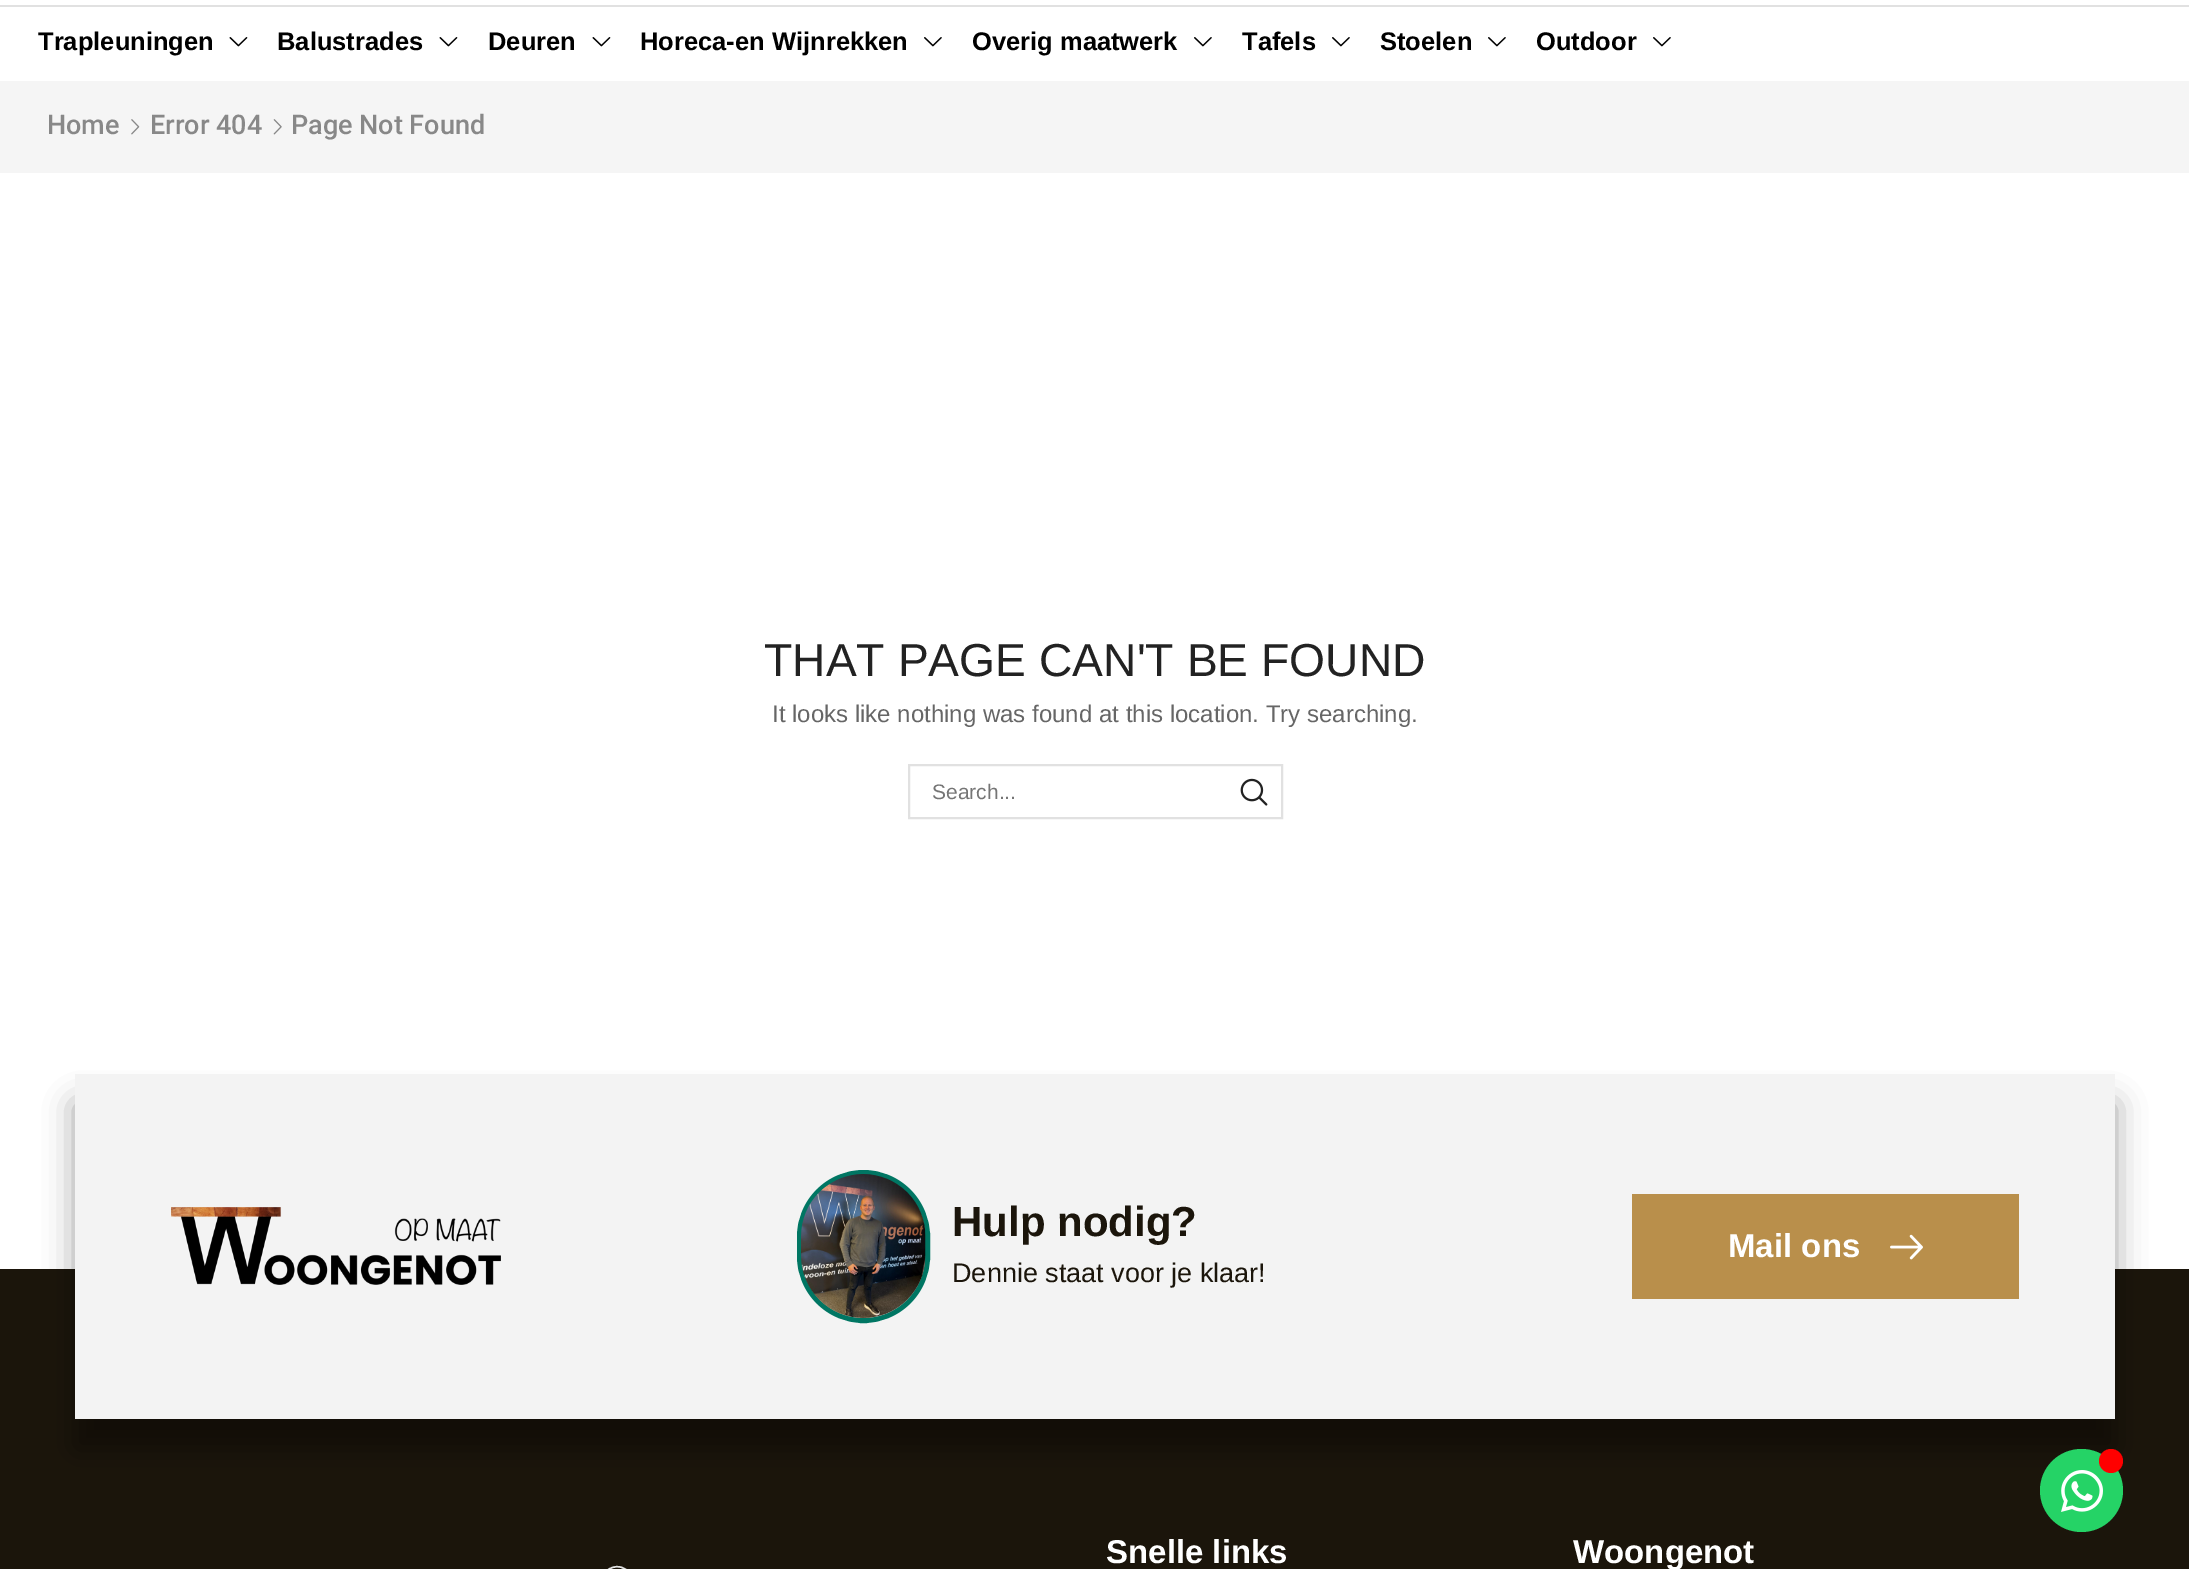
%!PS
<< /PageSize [2189 1569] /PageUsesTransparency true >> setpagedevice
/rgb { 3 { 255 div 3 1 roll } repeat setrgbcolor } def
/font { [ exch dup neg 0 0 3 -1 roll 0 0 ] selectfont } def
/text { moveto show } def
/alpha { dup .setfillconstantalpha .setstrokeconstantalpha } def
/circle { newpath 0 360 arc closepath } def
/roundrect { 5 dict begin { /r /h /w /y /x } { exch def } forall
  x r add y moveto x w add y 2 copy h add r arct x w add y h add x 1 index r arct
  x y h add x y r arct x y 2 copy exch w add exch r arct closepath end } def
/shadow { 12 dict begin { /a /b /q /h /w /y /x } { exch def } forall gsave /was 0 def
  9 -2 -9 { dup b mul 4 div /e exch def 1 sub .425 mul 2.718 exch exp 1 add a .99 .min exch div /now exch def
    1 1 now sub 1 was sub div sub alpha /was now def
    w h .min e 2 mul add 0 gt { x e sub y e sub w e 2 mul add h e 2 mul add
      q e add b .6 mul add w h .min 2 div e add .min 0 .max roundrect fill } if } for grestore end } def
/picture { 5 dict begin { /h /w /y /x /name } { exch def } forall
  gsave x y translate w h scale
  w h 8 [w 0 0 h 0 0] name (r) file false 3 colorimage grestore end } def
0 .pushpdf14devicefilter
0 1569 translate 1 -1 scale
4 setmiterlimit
255 255 255 rgb
0 0 2189 1569 rectfill
225 225 225 rgb
0 5 2189 2 rectfill
(img_01.rgb) 229 37 19 10 picture
(img_01.rgb) 439 37 19 10 picture
(img_01.rgb) 592 37 19 10 picture
(img_02.rgb) 924 37 18 10 picture
(img_02.rgb) 1194 37 18 10 picture
(img_02.rgb) 1332 37 18 10 picture
(img_02.rgb) 1488 37 18 10 picture
(img_02.rgb) 1653 37 18 10 picture
245 245 245 rgb
0 81 2189 92 rectfill
(img_03.rgb) 131 119 9 16 picture
(img_04.rgb) 273 119 9 16 picture
225 225 225 rgb
2 setlinewidth
909 765 373 53 rectstroke
(img_05.rgb) 1240 778 28 28 picture
27 21 11 rgb
0 1269 2189 300 rectfill
0 0 0 rgb
75 1104 2040 345 0 15 0.37 shadow
243 243 243 rgb
75 1074 2040 345 rectfill
(img_06.rgb) 171 1207 330 78 picture
0 118 99 rgb
5 setlinewidth
799.5 1172.5 128 148 64 roundrect stroke
(img_07.rgb) 801 1174 125 144 picture
185 143 75 rgb
1632 1194 387 105 rectfill
(img_08.rgb) 1890 1234 33 26 picture
225 225 225 rgb
1.5 setlinewidth
606.5 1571 moveto 3.5 -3.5 9 -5 13.5 -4 rcurveto 17.5 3.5 15 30 -3 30 rcurveto -3.5 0 -7.5 -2 -10.5 -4.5 rcurveto stroke
37 211 102 rgb
2081.5 1490.5 41.5 circle fill
(img_09.rgb) 2061 1470 42 42 picture
255 0 0 rgb
2111 1461 12 circle fill
/LiberationSans-Bold 25.5 font
0 0 0 rgb
(Trapleuningen) 38 50 text
(Balustrades) 277 50 text
(Deuren) 488 50 text
(Horeca-en Wijnrekken) 640 50 text
(Overig maatwerk) 972 50 text
(Tafels) 1242 50 text
(Stoelen) 1380 50 text
(Outdoor) 1536 50 text
/Roboto-Medium 27 font
136 136 136 rgb
(Home) 47 134 text
(Error 404) 150 134 text
(Page Not Found) 291 134 text
/LiberationSans-Regular 46.25 font
34 34 34 rgb
(THAT PAGE CAN'T BE FOUND) 764 676 text
/LiberationSans-Regular 24 font
102 102 102 rgb
(It looks like nothing was found at this location. Try searching.) 772 722 text
/LiberationSans-Regular 21 font
117 117 117 rgb
(Search...) 932 799 text
/LiberationSans-Bold 42 font
27 21 11 rgb
(Hulp nodig?) 952 1236 text
/LiberationSans-Regular 27 font
(Dennie staat voor je klaar!) 952 1282 text
/LiberationSans-Bold 33 font
255 255 255 rgb
(Mail ons) 1728 1257 text
(Snelle links) 1106 1563 text
(Woongenot) 1573 1563 text
.poppdf14devicefilter showpage
